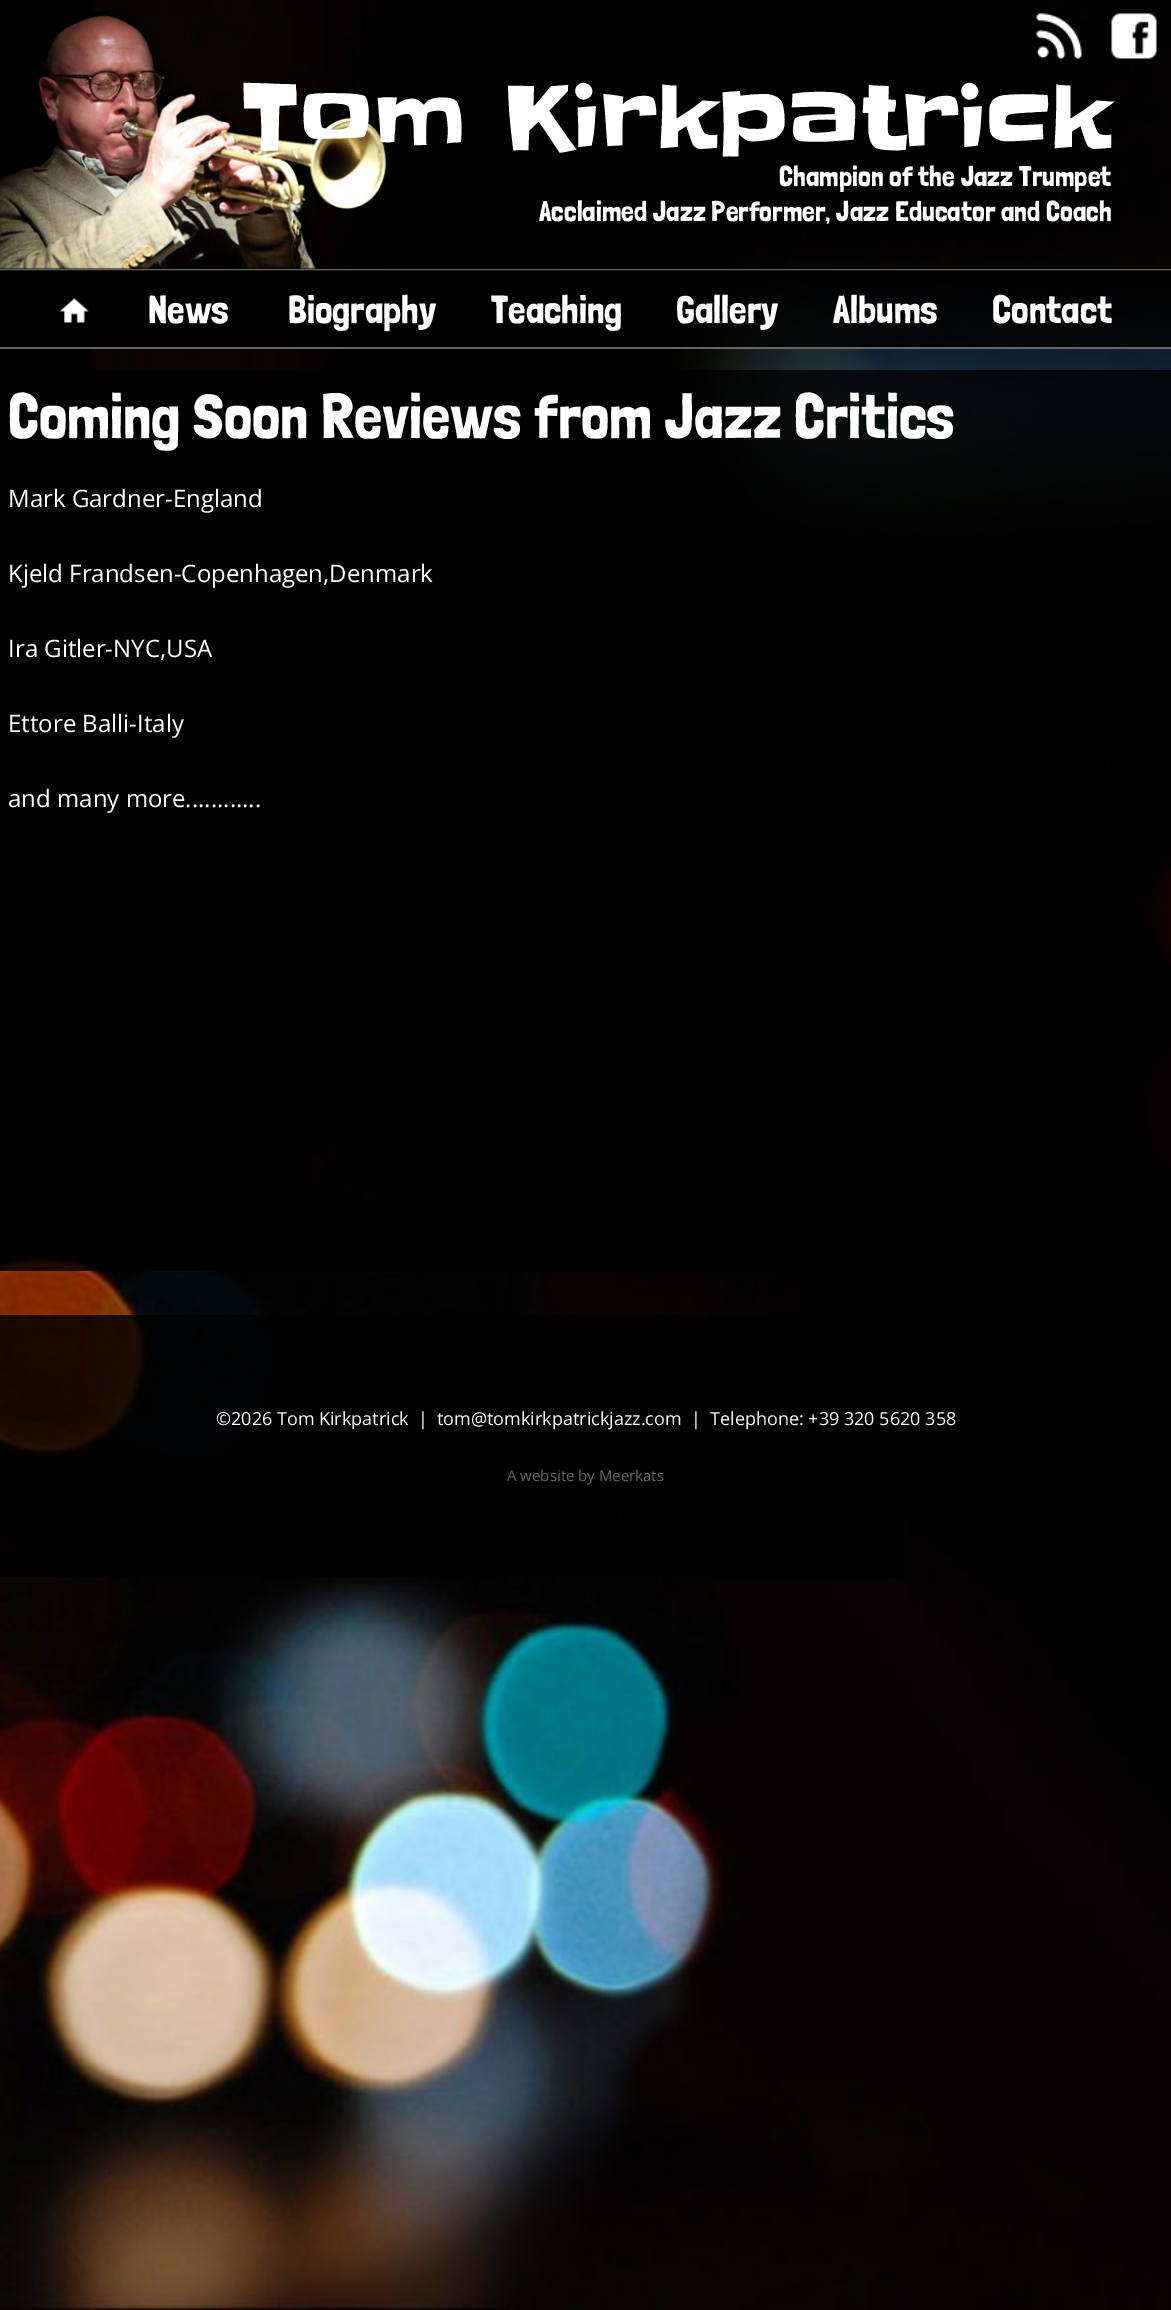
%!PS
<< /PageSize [1171 2310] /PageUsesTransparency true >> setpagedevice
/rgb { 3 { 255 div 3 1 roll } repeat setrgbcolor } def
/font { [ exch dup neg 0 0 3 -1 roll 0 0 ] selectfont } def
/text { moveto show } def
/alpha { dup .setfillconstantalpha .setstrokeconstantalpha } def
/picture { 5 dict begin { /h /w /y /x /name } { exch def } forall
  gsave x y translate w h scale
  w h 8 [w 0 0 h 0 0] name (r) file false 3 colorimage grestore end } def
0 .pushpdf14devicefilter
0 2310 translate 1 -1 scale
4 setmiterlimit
255 255 255 rgb
0 0 1171 2310 rectfill
(img_01.rgb) 0 0 1171 2310 picture
(img_02.rgb) 0 11 387 258 picture
102 102 102 rgb
0 269 1171 2 rectfill
(img_03.rgb) 1036 13 46 46 picture
(img_04.rgb) 1111 13 46 46 picture
0.79 alpha
0 0 0 rgb
0 270 1171 77 rectfill
1 alpha
102 102 102 rgb
0 347 1171 2 rectfill
(img_05.rgb) 60 298 29 25 picture
0.79 alpha
0 0 0 rgb
0 370 1171 901 rectfill
0 1315 899 262 rectfill
/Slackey-Regular 90 font
1 alpha
255 255 255 rgb
(Tom Kirkpatrick) 240 150 text
/LondrinaSolid-Regular 28.5 font
(Champion of the Jazz Trumpet) 779 186 text
(Acclaimed Jazz Performer, Jazz Educator and Coach) 539 221 text
/LondrinaSolid-Regular 39 font
(News) 148 323 text
(Biography) 288 323 text
(Teaching) 491 323 text
(Gallery) 676 323 text
(Albums) 833 323 text
(Contact) 992 323 text
/LondrinaSolid-Regular 63 font
(Coming Soon Reviews from Jazz Critics) 8 438 text
/OpenSans-Regular 24 font
(Mark Gardner-England) 8 507 text
(Kjeld Frandsen-Copenhagen,Denmark) 8 582 text
(Ira Gitler-NYC,USA) 8 657 text
(Ettore Balli-Italy) 8 732 text
(and many more............) 8 807 text
/OpenSans-Regular 18 font
(©2026 Tom Kirkpatrick  |) 216 1425 text
(tom@tomkirkpatrickjazz.com) 437 1425 text
(|  Telephone: +39 320 5620 358) 691 1425 text
/OpenSans-Regular 15 font
102 102 102 rgb
(A website by Meerkats) 507 1481 text
.poppdf14devicefilter showpage
